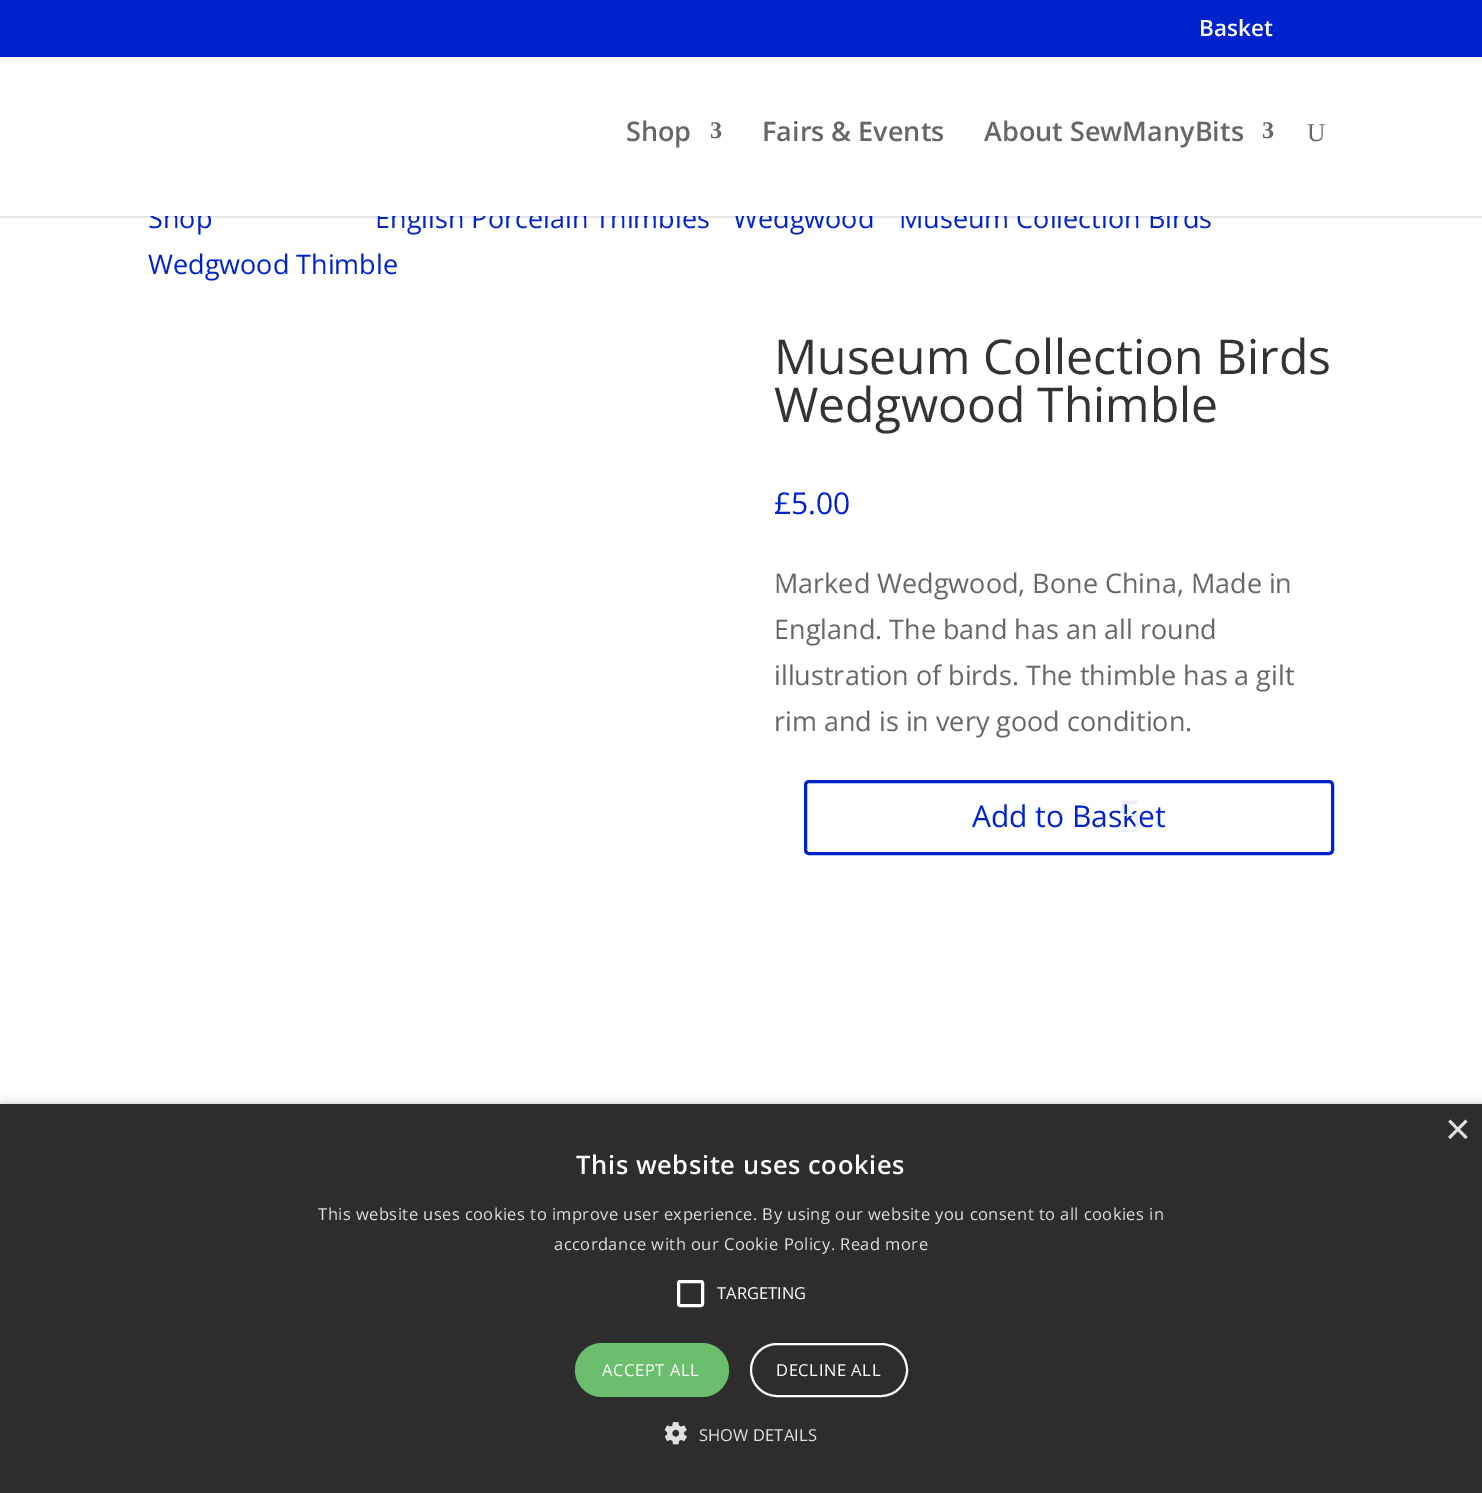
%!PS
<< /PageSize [1482 1493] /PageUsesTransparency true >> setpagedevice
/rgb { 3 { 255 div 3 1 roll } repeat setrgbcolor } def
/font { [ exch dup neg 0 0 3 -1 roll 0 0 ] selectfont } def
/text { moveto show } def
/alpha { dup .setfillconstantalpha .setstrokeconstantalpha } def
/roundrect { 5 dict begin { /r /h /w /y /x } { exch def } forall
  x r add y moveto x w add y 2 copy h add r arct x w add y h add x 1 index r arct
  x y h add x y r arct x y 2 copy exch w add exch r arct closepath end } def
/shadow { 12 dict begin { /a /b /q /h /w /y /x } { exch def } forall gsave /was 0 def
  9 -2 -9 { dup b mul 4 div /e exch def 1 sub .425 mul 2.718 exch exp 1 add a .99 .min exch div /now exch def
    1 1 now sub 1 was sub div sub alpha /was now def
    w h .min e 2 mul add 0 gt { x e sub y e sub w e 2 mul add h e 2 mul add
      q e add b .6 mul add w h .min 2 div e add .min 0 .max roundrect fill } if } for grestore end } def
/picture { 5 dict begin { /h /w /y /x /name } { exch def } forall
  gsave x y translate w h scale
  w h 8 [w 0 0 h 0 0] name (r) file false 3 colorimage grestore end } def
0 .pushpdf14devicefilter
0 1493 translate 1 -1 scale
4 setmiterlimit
255 255 255 rgb
0 0 1482 1493 rectfill
0 34 204 rgb
0 0 1482 57 rectfill
0.1 alpha
0 0 0 rgb
0 216 1482 2 rectfill
1 alpha
0 34 204 rgb
3 setlinewidth
805.5 781.5 527 72 3.5 roundrect stroke
0 0 0 rgb
2 1107 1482 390 0 6 0.35 shadow
45 45 45 rgb
0 1104 1482 389 rectfill
255 255 255 rgb
678.5 1281.5 24 24 1.5 roundrect stroke
107 190 107 rgb
575 1343 154 54 27 roundrect fill
255 255 255 rgb
2 setlinewidth
751 1344 156 52 26 roundrect stroke
(img_01.rgb) 665 1422 22 23 picture
/OpenSans-SemiBold 22.5 font
(Basket) 1199 36 text
/OpenSans-SemiBold 27 font
102 102 102 rgb
(Shop) 626 141 text
/LiberationSerif-Bold 24 font
(3) 710 138 text
/OpenSans-SemiBold 27 font
(Fairs & Events) 762 141 text
(About SewManyBits) 984 141 text
/LiberationSerif-Bold 24 font
(3) 1262 138 text
/LiberationSerif-Regular 25.5 font
(U) 1307 141 text
/OpenSans-Regular 27 font
0 34 204 rgb
(Shop) 148 228 text
(English Porcelain Thimbles) 375 228 text
(Wedgwood) 733 228 text
(Museum Collection Birds) 899 228 text
255 255 255 rgb
149 207 1062 9 rectfill
0 34 204 rgb
(Wedgwood Thimble) 148 274 text
/OpenSans-Regular 48 font
51 51 51 rgb
(Museum Collection Birds) 774 374 text
(Wedgwood Thimble) 774 422 text
/OpenSans-Regular 30 font
0 34 204 rgb
(£5.00) 774 514 text
/OpenSans-Regular 27 font
102 102 102 rgb
(Marked Wedgwood, Bone China, Made in) 774 593 text
(England. The band has an all round) 774 639 text
(illustration of birds. The thimble has a gilt) 774 685 text
(rim and is in very good condition.) 774 731 text
/OpenSans-Regular 30 font
0 34 204 rgb
(Add to Basket) 972 827 text
/LiberationSerif-Regular 48 font
235 237 251 rgb
(5) 1118 832 text
/LiberationSans-Regular 44 font
224 224 224 rgb
(×) 1445 1144 text
/OpenSans-SemiBold 25.5 font
255 255 255 rgb
576 1174 moveto 0.6 0 (This website uses cookies) ashow
/OpenSans-Regular 16.5 font
224 224 224 rgb
318 1220 moveto 0.45 0 (This website uses cookies to improve user experience. By using our website you consent to all cookies in) ashow
554 1250 moveto 0.45 0 (accordance with our Cookie Policy. Read more) ashow
255 255 255 rgb
(TARGETING) 717 1299 text
602 1376 moveto 0.6 0 (ACCEPT ALL) ashow
776 1376 moveto 0.6 0 (DECLINE ALL) ashow
224 224 224 rgb
699 1441 moveto 0.1 0 (SHOW DETAILS) ashow
.poppdf14devicefilter showpage
